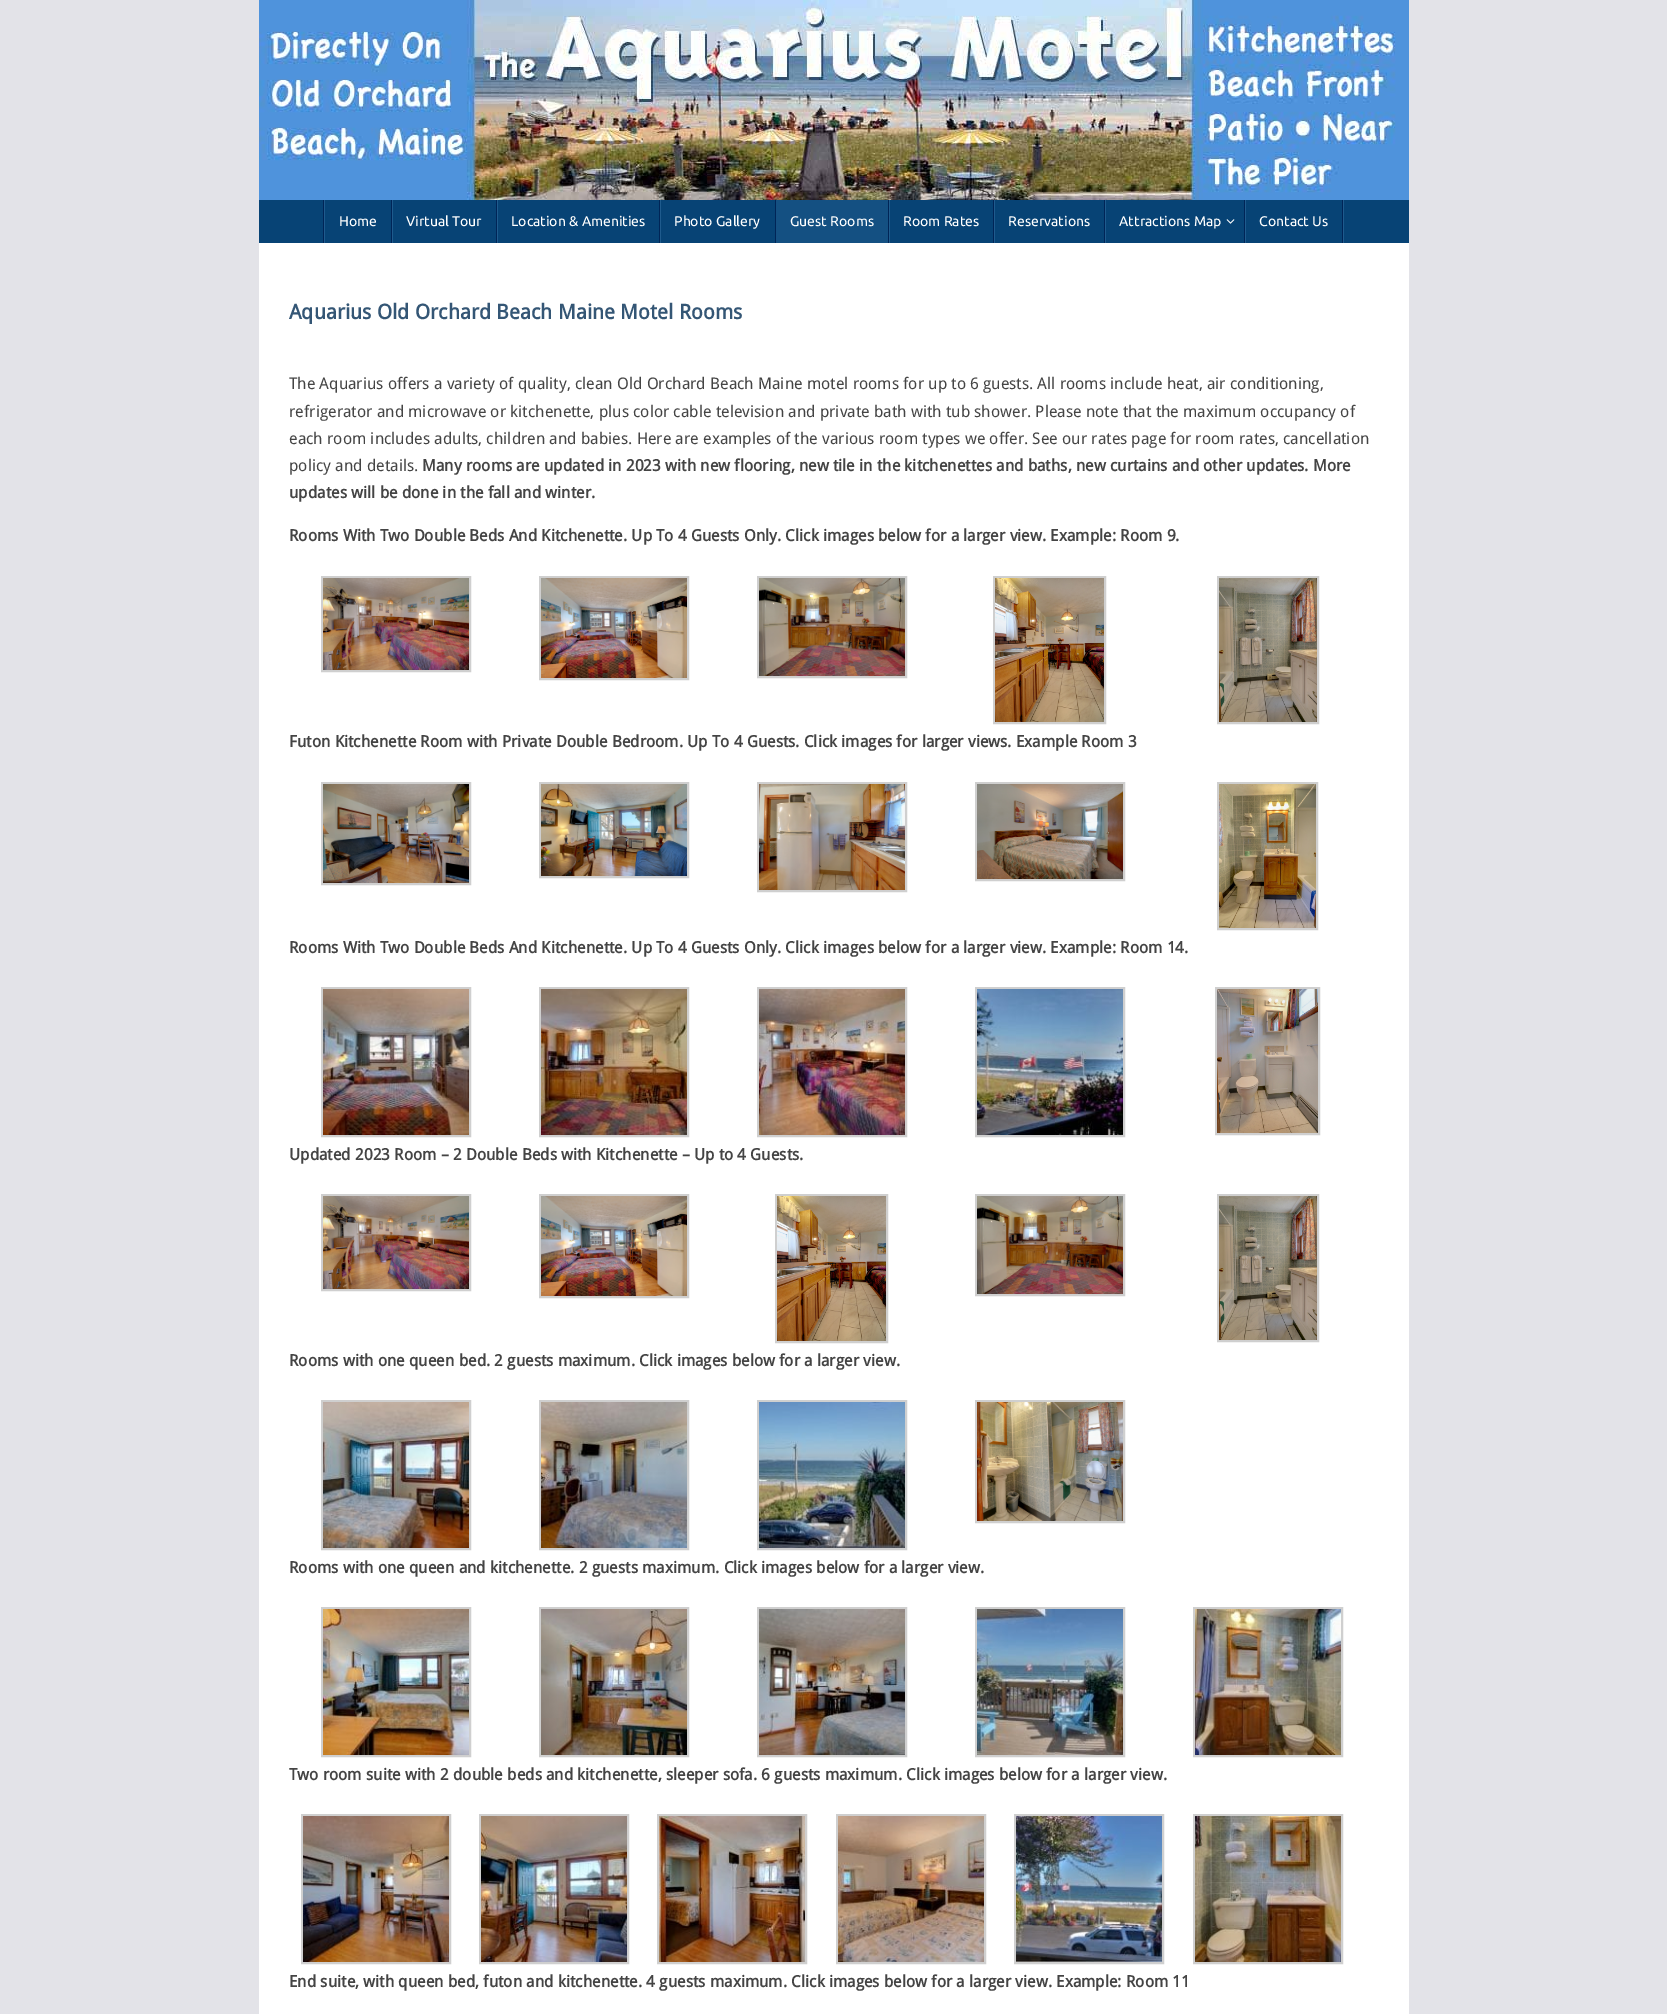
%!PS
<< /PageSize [1667 2014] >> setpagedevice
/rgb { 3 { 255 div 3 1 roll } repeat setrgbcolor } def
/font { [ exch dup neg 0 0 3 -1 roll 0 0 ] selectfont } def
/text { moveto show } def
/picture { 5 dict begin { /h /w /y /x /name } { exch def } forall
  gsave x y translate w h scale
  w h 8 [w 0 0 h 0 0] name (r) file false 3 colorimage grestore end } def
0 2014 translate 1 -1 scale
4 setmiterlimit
227 227 232 rgb
0 0 1667 2014 rectfill
(img_01.rgb) 259 0 1150 200 picture
7 67 117 rgb
259 200 1150 43 rectfill
0 37 87 rgb
323 200 1 43 rectfill
31 91 141 rgb
324 200 1 43 rectfill
392 200 1 43 rectfill
0 37 87 rgb
391 200 1 43 rectfill
31 91 141 rgb
497 200 1 43 rectfill
0 37 87 rgb
496 200 1 43 rectfill
31 91 141 rgb
660 200 1 43 rectfill
0 37 87 rgb
659 200 1 43 rectfill
775 200 1 43 rectfill
20 80 130 rgb
776 200 112 43 rectfill
31 91 141 rgb
889 200 1 43 rectfill
0 37 87 rgb
888 200 1 43 rectfill
31 91 141 rgb
994 200 1 43 rectfill
0 37 87 rgb
993 200 1 43 rectfill
31 91 141 rgb
1105 200 1 43 rectfill
0 37 87 rgb
1104 200 1 43 rectfill
31 91 141 rgb
1245 200 1 43 rectfill
0 37 87 rgb
1244 200 1 43 rectfill
(img_02.rgb) 1226 219 9 5 picture
31 91 141 rgb
1343 200 1 43 rectfill
0 37 87 rgb
1342 200 1 43 rectfill
255 255 255 rgb
259 243 1150 1771 rectfill
207 207 207 rgb
2 setlinewidth
322 577 148 94 rectstroke
(img_03.rgb) 323 578 146 92 picture
540 577 148 102 rectstroke
(img_04.rgb) 541 578 146 100 picture
758 577 148 100 rectstroke
(img_05.rgb) 759 578 146 98 picture
994 577 111 146 rectstroke
(img_06.rgb) 995 578 109 144 picture
1218 577 100 146 rectstroke
(img_07.rgb) 1219 578 98 144 picture
322 783 148 101 rectstroke
(img_08.rgb) 323 784 146 99 picture
540 783 148 94 rectstroke
(img_09.rgb) 541 784 146 92 picture
758 783 148 108 rectstroke
(img_10.rgb) 759 784 146 106 picture
976 783 148 97 rectstroke
(img_11.rgb) 977 784 146 95 picture
1218 783 99 146 rectstroke
(img_12.rgb) 1219 784 97 144 picture
322 988 148 148 rectstroke
(img_13.rgb) 323 989 146 146 picture
540 988 148 148 rectstroke
(img_14.rgb) 541 989 146 146 picture
758 988 148 148 rectstroke
(img_15.rgb) 759 989 146 146 picture
976 988 148 148 rectstroke
(img_16.rgb) 977 989 146 146 picture
1216 988 103 146 rectstroke
(img_17.rgb) 1217 989 101 144 picture
322 1195 148 95 rectstroke
(img_18.rgb) 323 1196 146 93 picture
540 1195 148 102 rectstroke
(img_19.rgb) 541 1196 146 100 picture
776 1195 111 147 rectstroke
(img_20.rgb) 777 1196 109 145 picture
976 1195 148 100 rectstroke
(img_05.rgb) 977 1196 146 98 picture
1218 1195 100 146 rectstroke
(img_07.rgb) 1219 1196 98 144 picture
322 1401 148 148 rectstroke
(img_21.rgb) 323 1402 146 146 picture
540 1401 148 148 rectstroke
(img_22.rgb) 541 1402 146 146 picture
758 1401 148 148 rectstroke
(img_23.rgb) 759 1402 146 146 picture
976 1401 148 121 rectstroke
(img_24.rgb) 977 1402 146 119 picture
322 1608 148 148 rectstroke
(img_25.rgb) 323 1609 146 146 picture
540 1608 148 148 rectstroke
(img_26.rgb) 541 1609 146 146 picture
758 1608 148 148 rectstroke
(img_27.rgb) 759 1609 146 146 picture
976 1608 148 148 rectstroke
(img_28.rgb) 977 1609 146 146 picture
1194 1608 148 148 rectstroke
(img_29.rgb) 1195 1609 146 146 picture
302 1815 148 148 rectstroke
(img_30.rgb) 303 1816 146 146 picture
480 1815 148 148 rectstroke
(img_31.rgb) 481 1816 146 146 picture
658 1815 148 148 rectstroke
(img_32.rgb) 659 1816 146 146 picture
837 1815 148 148 rectstroke
(img_33.rgb) 838 1816 146 146 picture
1015 1815 148 148 rectstroke
(img_34.rgb) 1016 1816 146 146 picture
1194 1815 148 148 rectstroke
(img_35.rgb) 1195 1816 146 146 picture
/Ubuntu-Regular 14 font
255 255 255 rgb
(Home) 339 226 text
(Virtual Tour) 406 226 text
(Location & Amenities) 511 226 text
(Photo Gallery) 674 226 text
(Guest Rooms) 790 226 text
(Room Rates) 903 226 text
(Reservations) 1008 226 text
(Attractions Map) 1119 226 text
(Contact Us) 1259 226 text
/DroidSans-Bold 20.55 font
52 86 117 rgb
(Aquarius Old Orchard Beach Maine Motel Rooms) 289 319 text
/DroidSans-Regular 16 font
68 68 68 rgb
(The Aquarius offers a variety of quality, clean Old Orchard Beach Maine motel rooms for up to 6 guests. All rooms include heat, air conditioning,) 289 389 text
(refrigerator and microwave or kitchenette, plus color cable television and private bath with tub shower. Please note that the maximum occupancy of) 289 417 text
(each room includes adults, children and babies. Here are examples of the various room types we offer. See our rates page for room rates, cancellation) 289 444 text
(policy and details.) 289 471 text
/DroidSans-Bold 16 font
(Many rooms are updated in 2023 with new flooring, new tile in the kitchenettes and baths, new curtains and other updates. More) 422 471 text
(updates will be done in the fall and winter.) 289 498 text
(Rooms With Two Double Beds And Kitchenette. Up To 4 Guests Only. Click images below for a larger view. Example: Room 9.) 289 541 text
(Futon Kitchenette Room with Private Double Bedroom. Up To 4 Guests. Click images for larger views. Example Room 3) 289 747 text
(Rooms With Two Double Beds And Kitchenette. Up To 4 Guests Only. Click images below for a larger view. Example: Room 14.) 289 953 text
(Updated 2023 Room – 2 Double Beds with Kitchenette – Up to 4 Guests.) 289 1160 text
(Rooms with one queen bed. 2 guests maximum. Click images below for a larger view.) 289 1366 text
(Rooms with one queen and kitchenette. 2 guests maximum. Click images below for a larger view.) 289 1573 text
(Two room suite with 2 double beds and kitchenette, sleeper sofa. 6 guests maximum. Click images below for a larger view.) 289 1780 text
(End suite, with queen bed, futon and kitchenette. 4 guests maximum. Click images below for a larger view. Example: Room 11) 289 1987 text
showpage
